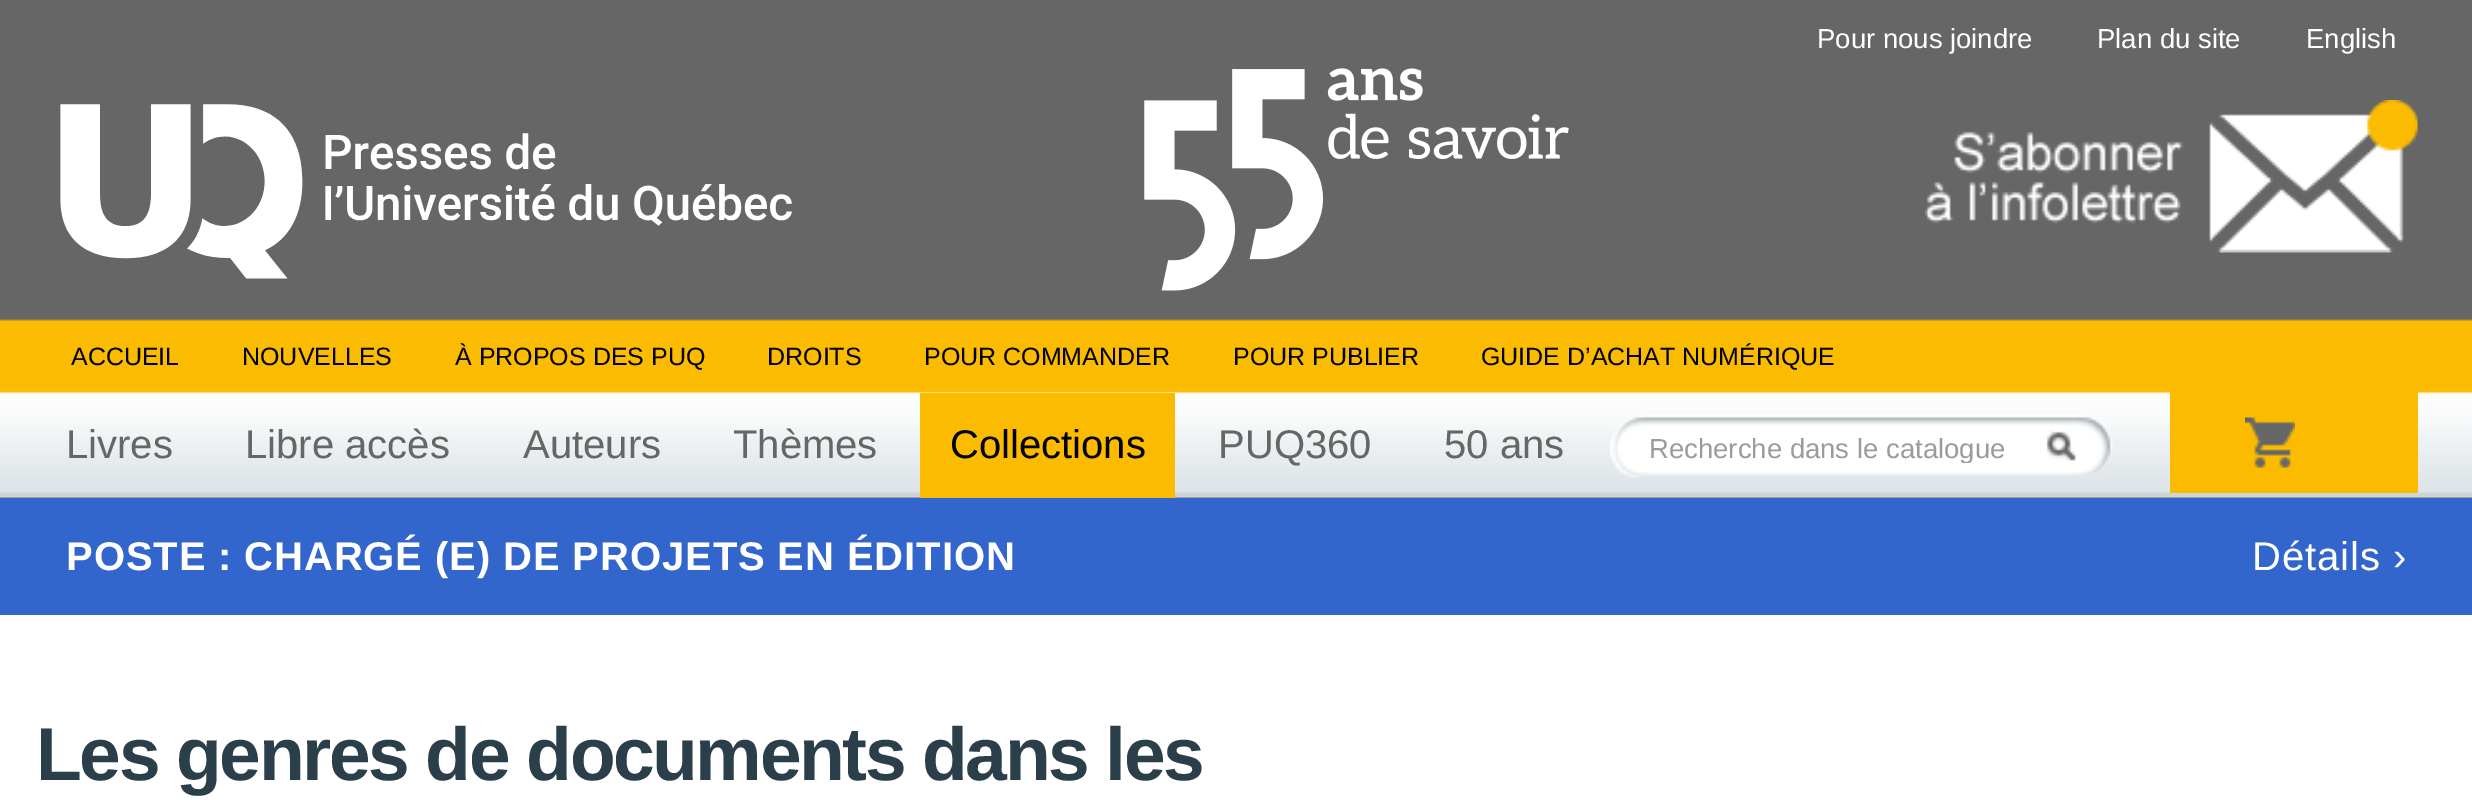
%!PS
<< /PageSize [2472 800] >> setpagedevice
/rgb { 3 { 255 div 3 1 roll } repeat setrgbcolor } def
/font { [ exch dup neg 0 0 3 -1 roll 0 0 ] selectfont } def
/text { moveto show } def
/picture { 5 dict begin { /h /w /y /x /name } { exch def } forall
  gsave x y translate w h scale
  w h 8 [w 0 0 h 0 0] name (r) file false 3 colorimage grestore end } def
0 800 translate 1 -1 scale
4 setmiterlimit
255 255 255 rgb
0 0 2472 800 rectfill
102 102 102 rgb
0 0 2472 498 rectfill
(img_01.rgb) 0 319 2472 179 picture
(img_02.rgb) 60 104 732 175 picture
(img_03.rgb) 1144 68 425 223 picture
(img_04.rgb) 1925 100 493 153 picture
250 187 0 rgb
920 393 255 105 rectfill
(img_05.rgb) 1610 415 503 63 picture
2170 391 248 102 rectfill
(img_06.rgb) 2245 417 50 51 picture
51 102 204 rgb
0 498 2472 117 rectfill
/LiberationSans-Regular 27.5 font
255 255 255 rgb
(Pour nous joindre) 1817 48 text
(Plan du site) 2097 48 text
(English) 2306 48 text
/LiberationSans-Regular 25 font
0 0 0 rgb
(ACCUEIL) 71 365 text
(NOUVELLES) 242 365 text
(À PROPOS DES PUQ) 455 365 text
(DROITS) 767 365 text
(POUR COMMANDER) 924 365 text
(POUR PUBLIER) 1233 365 text
(GUIDE D’ACHAT NUMÉRIQUE) 1481 365 text
/LiberationSans-Regular 40 font
102 102 102 rgb
(Livres) 66 458 text
(Libre accès) 245 458 text
(Auteurs) 523 458 text
(Thèmes) 733 458 text
0 0 0 rgb
(Collections) 950 458 text
102 102 102 rgb
(PUQ360) 1218 458 text
(50 ans) 1444 458 text
gsave
1650 433 395 30 rectclip
/LiberationSans-Regular 27.5 font
152 156 157 rgb
(Recherche dans le catalogue) 1649 458 text
grestore
/LiberationSans-Bold 40 font
255 255 255 rgb
66 570 moveto 0.9 0 (POSTE : CHARGÉ \(E\) DE PROJETS EN ÉDITION) ashow
/LiberationSans-Regular 40 font
2252 570 moveto 0.9 0 (Détails ›) ashow
/LiberationSans-Bold 75 font
43 63 74 rgb
36 780 moveto -2.5 0 (Les genres de documents dans les) ashow
showpage
